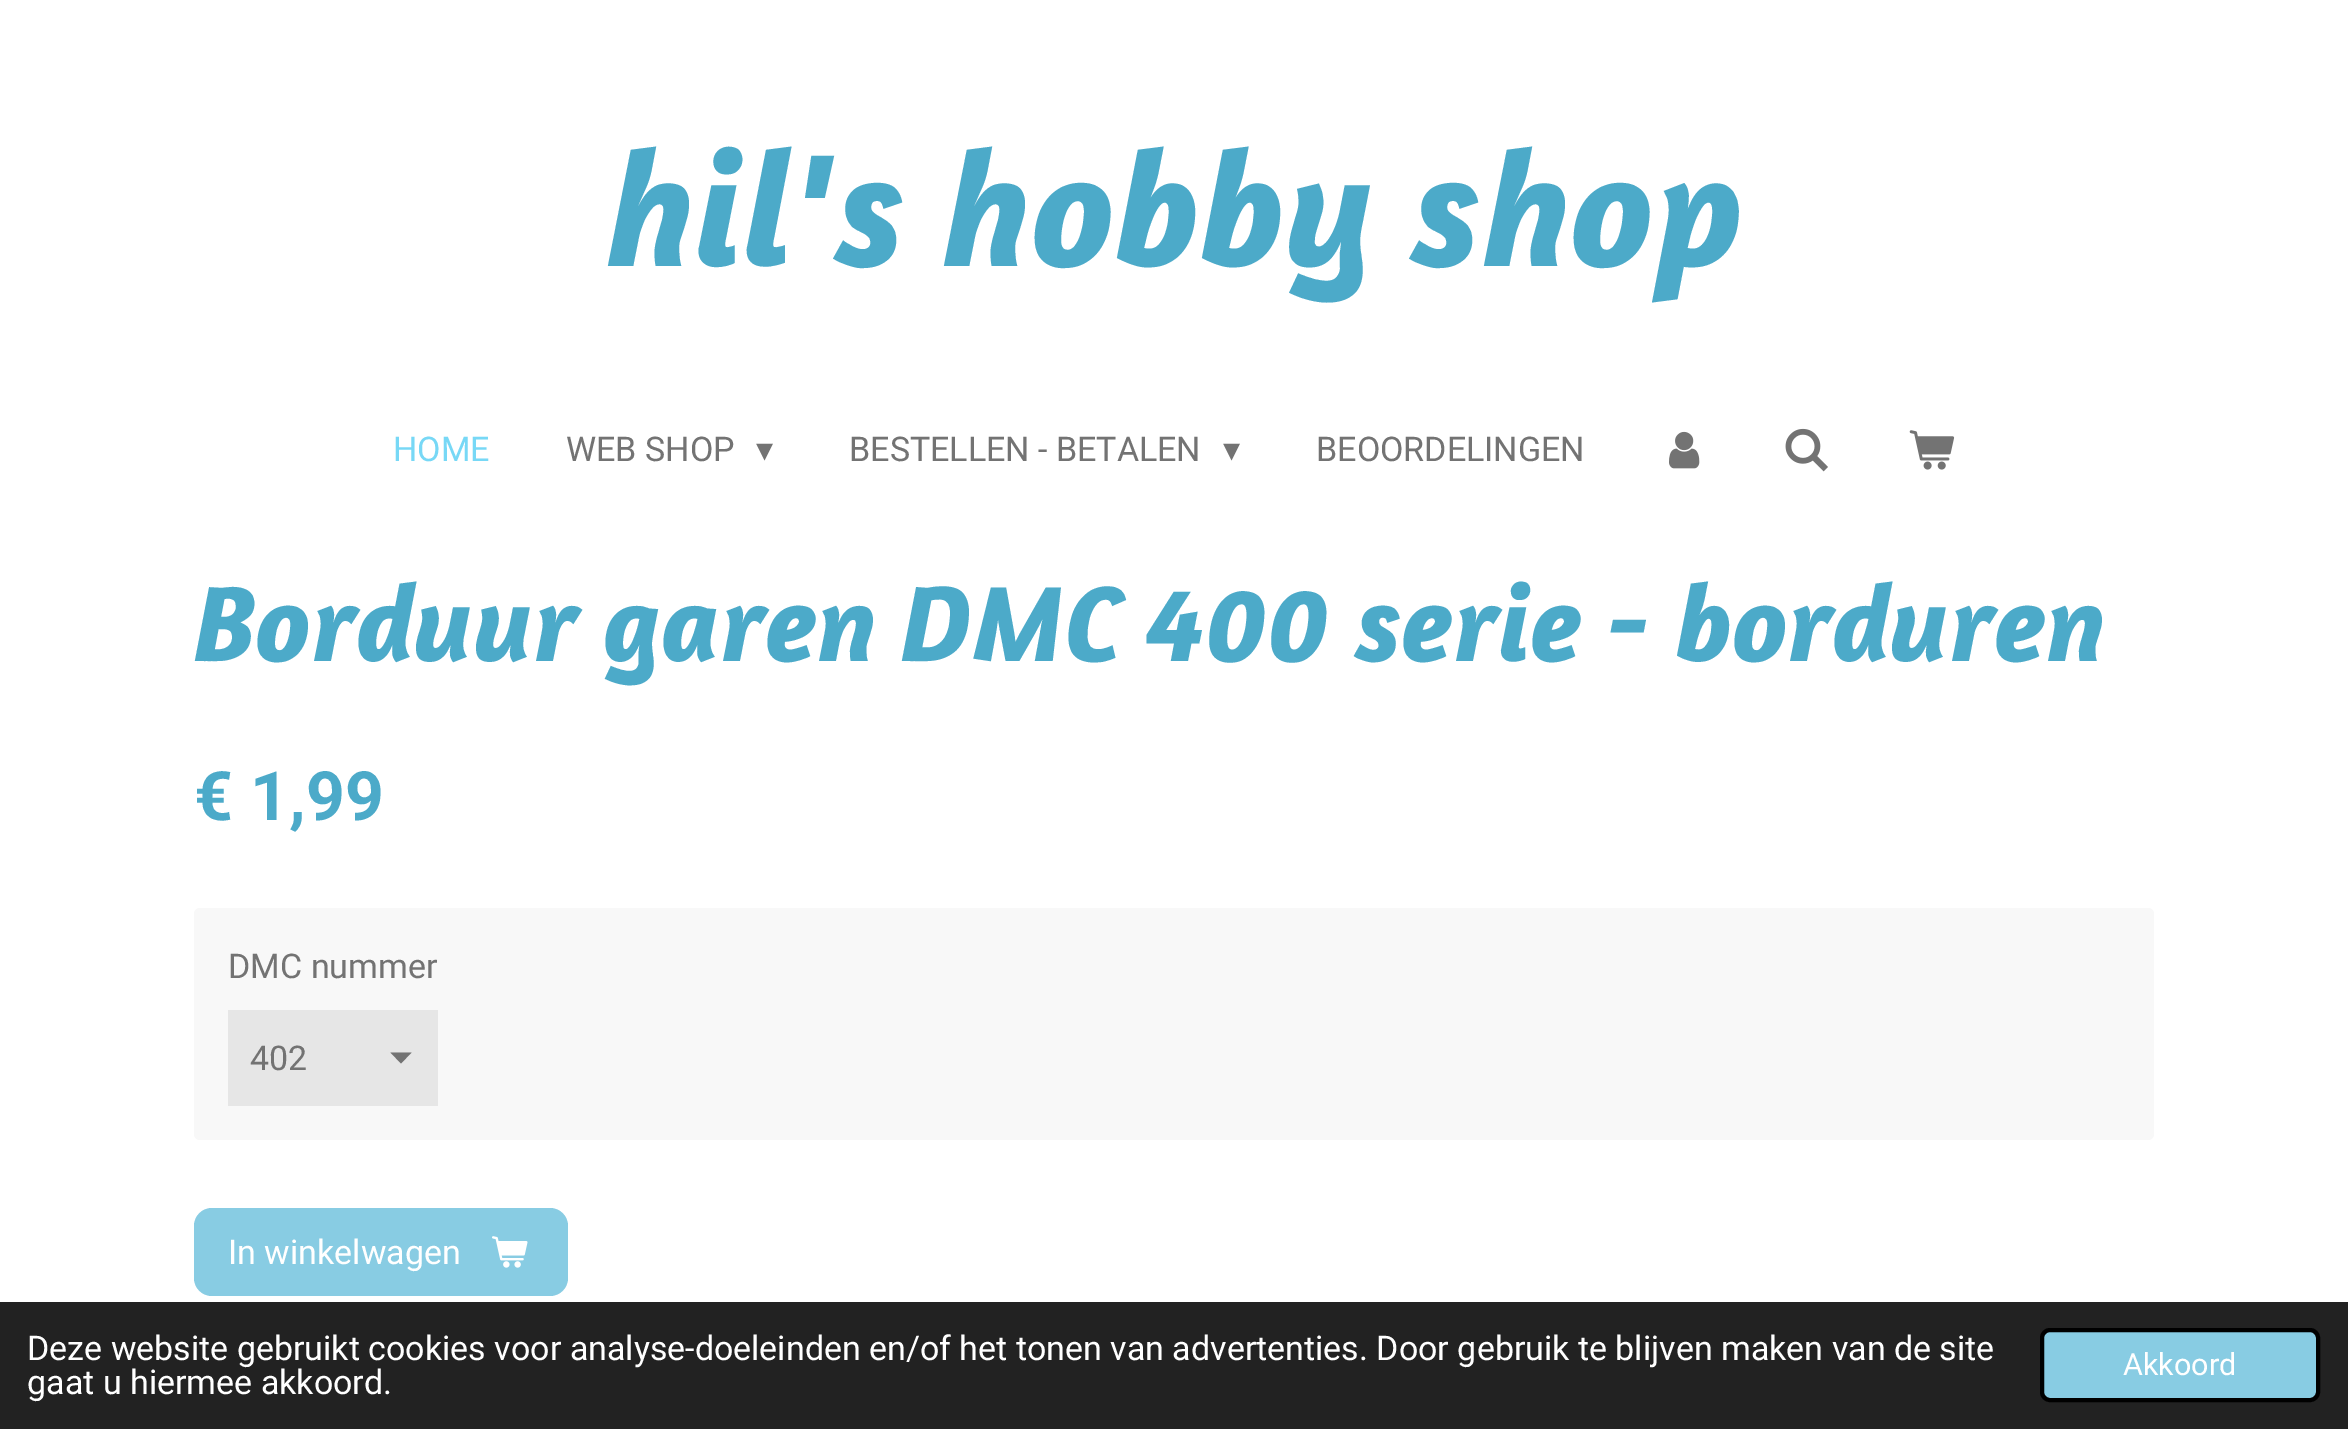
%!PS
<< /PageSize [2348 1429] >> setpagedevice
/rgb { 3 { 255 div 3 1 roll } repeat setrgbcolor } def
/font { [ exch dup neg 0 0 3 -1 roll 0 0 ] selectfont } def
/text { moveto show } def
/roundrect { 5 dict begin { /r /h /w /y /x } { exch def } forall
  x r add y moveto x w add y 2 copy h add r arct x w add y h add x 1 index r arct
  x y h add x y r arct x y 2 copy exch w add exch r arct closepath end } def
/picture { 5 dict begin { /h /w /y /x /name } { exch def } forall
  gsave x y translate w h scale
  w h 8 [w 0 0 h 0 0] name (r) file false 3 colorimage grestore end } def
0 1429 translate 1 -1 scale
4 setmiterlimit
255 255 255 rgb
0 0 2348 1429 rectfill
(img_01.rgb) 1669 431 31 38 picture
(img_02.rgb) 1785 428 43 44 picture
(img_03.rgb) 1909 430 46 40 picture
248 248 248 rgb
194 908 1960 232 6 roundrect fill
230 230 230 rgb
228 1010 210 96 rectfill
115 115 115 rgb
401 1063.5 moveto -10.5 -11 rlineto 21 0 rlineto closepath fill
136 204 227 rgb
194 1208 374 88 18 roundrect fill
(img_04.rgb) 492 1236 36 32 picture
34 34 34 rgb
0 1302 2348 127 rectfill
136 204 227 rgb
2042 1330 276 70 8 roundrect gsave fill grestore
0 0 0 rgb
4 setlinewidth
stroke
/Amaranth-BoldItalic 165 font
76 170 201 rgb
(hil's hobby shop) 605 266 text
/Roboto-Regular 34 font
119 216 246 rgb
(HOME) 393 461 text
115 115 115 rgb
(WEB SHOP) 566 461 text
/DejaVuSans-Regular 34 font
(▾) 756 461 text
/Roboto-Regular 34 font
(BESTELLEN - BETALEN) 849 461 text
/DejaVuSans-Regular 34 font
(▾) 1223 461 text
/Roboto-Regular 34 font
(BEOORDELINGEN) 1316 461 text
/Amaranth-BoldItalic 110 font
76 170 201 rgb
(Borduur garen DMC 400 serie - borduren) 194 661 text
/Roboto-Bold 68 font
(€ 1,99) 194 820 text
/Roboto-Regular 34 font
115 115 115 rgb
(DMC nummer) 228 978 text
(402) 250 1070 text
255 255 255 rgb
(In winkelwagen) 228 1264 text
(Deze website gebruikt cookies voor analyse-doeleinden en/of het tonen van advertenties. Door gebruik te blijven maken van de site) 27 1360 text
(gaat u hiermee akkoord.) 27 1394 text
/Roboto-Regular 30.5 font
(Akkoord) 2123 1375 text
showpage
